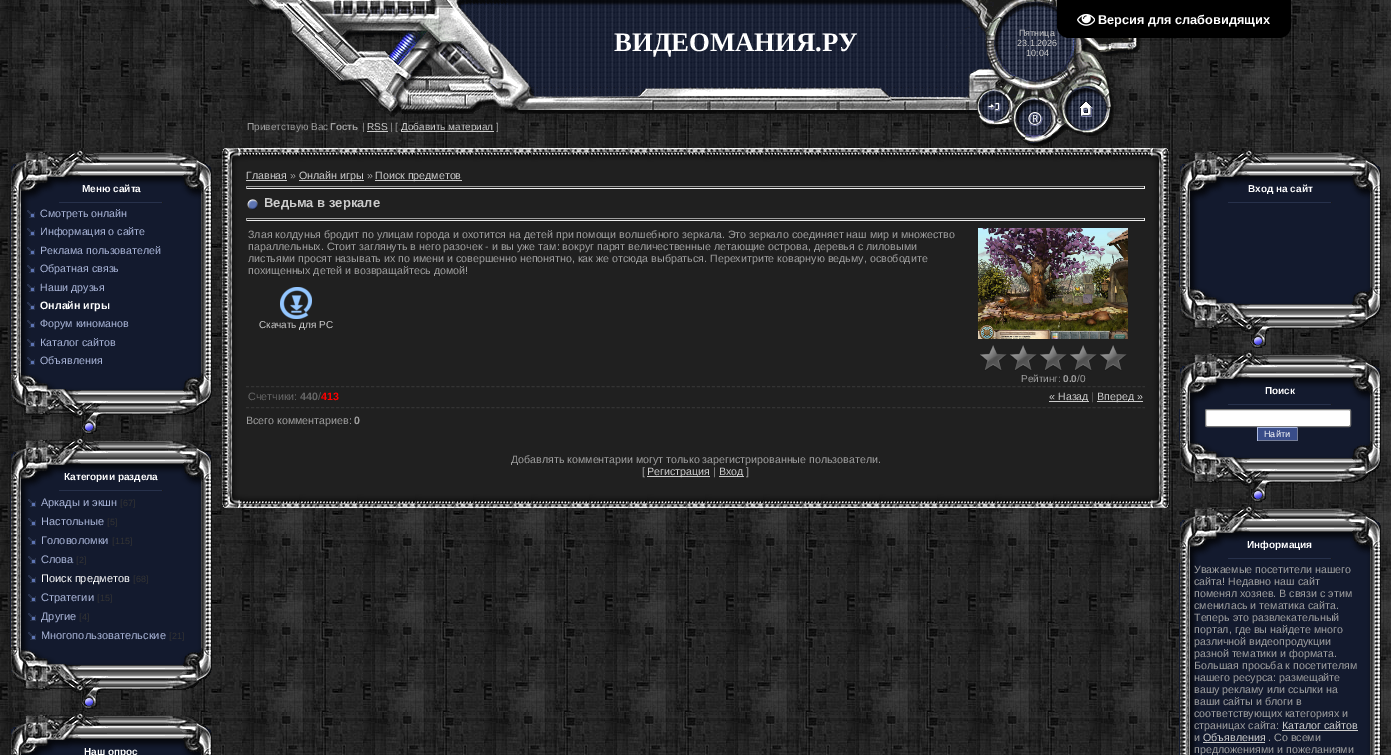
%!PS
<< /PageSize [1391 755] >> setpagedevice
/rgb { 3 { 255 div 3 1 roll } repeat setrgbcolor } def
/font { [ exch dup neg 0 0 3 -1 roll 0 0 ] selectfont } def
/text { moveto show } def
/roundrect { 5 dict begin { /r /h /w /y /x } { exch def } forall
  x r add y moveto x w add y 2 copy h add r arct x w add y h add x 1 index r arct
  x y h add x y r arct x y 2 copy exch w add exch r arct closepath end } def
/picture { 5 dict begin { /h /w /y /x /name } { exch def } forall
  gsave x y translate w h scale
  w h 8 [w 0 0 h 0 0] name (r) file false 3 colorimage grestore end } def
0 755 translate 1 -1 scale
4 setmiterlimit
255 255 255 rgb
0 0 1391 755 rectfill
(img_01.rgb) 0 0 1391 755 picture
(img_05.rgb) 965 0 176 85 picture
0 0 0 rgb
1057 0 moveto 234 0 rlineto 0 26 rlineto 0 6.5 -5.5 12 -12 12 rcurveto -210 0 rlineto -6.5 0 -12 -5.5 -12 -12 rcurveto closepath fill
(img_02.rgb) 1077 13 18 13 picture
(img_03.rgb) 247 0 261 85 picture
(img_04.rgb) 508 0 457 85 picture
(img_06.rgb) 361 85 604 32 picture
204 204 204 rgb
367 131 21 1 rectfill
401 131 93 1 rectfill
(img_07.rgb) 982 85 132 62 picture
(img_08.rgb) 965 85 47 38 picture
(img_09.rgb) 1014 85 46 51 picture
(img_10.rgb) 1060 85 48 39 picture
(img_11.rgb) 11 148 201 59 picture
19 26 46 rgb
10 207 1 166 rectfill
(img_12.rgb) 11 207 201 166 picture
(img_13.rgb) 27 210 8 8 picture
(img_13.rgb) 27 228 8 8 picture
(img_13.rgb) 27 247 8 8 picture
(img_13.rgb) 27 265 8 8 picture
(img_13.rgb) 27 284 8 8 picture
(img_13.rgb) 27 302 8 8 picture
(img_13.rgb) 27 320 8 8 picture
(img_13.rgb) 27 339 8 8 picture
(img_13.rgb) 27 357 8 8 picture
(img_14.rgb) 11 373 201 61 picture
(img_15.rgb) 11 436 201 59 picture
10 495 1 153 rectfill
(img_16.rgb) 11 495 201 153 picture
(img_17.rgb) 28 499 8 8 picture
(img_17.rgb) 28 518 8 8 picture
(img_17.rgb) 28 537 8 8 picture
(img_17.rgb) 28 556 8 8 picture
(img_17.rgb) 28 575 8 8 picture
(img_17.rgb) 28 594 8 8 picture
(img_17.rgb) 28 613 8 8 picture
(img_17.rgb) 28 632 8 8 picture
(img_18.rgb) 11 648 201 61 picture
(img_19.rgb) 11 711 201 44 picture
(img_20.rgb) 222 148 19 16 picture
(img_21.rgb) 241 148 909 16 picture
(img_22.rgb) 1150 148 19 16 picture
(img_23.rgb) 222 164 19 328 picture
32 32 32 rgb
241 164 909 328 rectfill
204 204 204 rgb
246 180 41 1 rectfill
299 180 65 1 rectfill
375 180 87 1 rectfill
159 159 159 rgb
246 186 899 1 rectfill
238 238 238 rgb
1144 186 1 3 rectfill
246 188 899 1 rectfill
159 159 159 rgb
246 186 1 3 rectfill
(img_24.rgb) 247 199 11 11 picture
246 218 899 1 rectfill
238 238 238 rgb
1144 218 1 3 rectfill
246 220 899 1 rectfill
159 159 159 rgb
246 218 1 3 rectfill
(img_25.rgb) 280 287 32 32 picture
(img_26.rgb) 978 228 150 111 picture
(img_27.rgb) 980 345 147 26 picture
51 51 51 rgb
[3 2.01] 0 setdash
246 386.5 moveto 899 0 rlineto stroke
246 407.5 moveto 899 0 rlineto stroke
204 204 204 rgb
1049 401 40 1 rectfill
1097 401 46 1 rectfill
647 476 63 1 rectfill
719 476 25 1 rectfill
(img_28.rgb) 1150 164 19 328 picture
(img_29.rgb) 222 492 19 16 picture
(img_30.rgb) 241 492 909 16 picture
(img_31.rgb) 1150 492 19 16 picture
(img_32.rgb) 1180 148 201 59 picture
19 26 46 rgb
1179 207 1 80 rectfill
(img_33.rgb) 1180 207 201 80 picture
(img_34.rgb) 1180 287 201 61 picture
(img_35.rgb) 1180 350 201 59 picture
1179 409 1 32 rectfill
(img_36.rgb) 1180 409 201 32 picture
255 255 255 rgb
1205.5 409.5 145 17 1.5 roundrect gsave fill grestore
118 118 118 rgb
[] 0 setdash
stroke
57 77 137 rgb
1258 428 39 12 rectfill
175 189 228 rgb
1257 427 41 1 rectfill
117 126 152 rgb
1297 427 1 14 rectfill
1257 440 41 1 rectfill
175 189 228 rgb
1257 427 1 14 rectfill
(img_37.rgb) 1180 441 201 61 picture
(img_32.rgb) 1180 504 201 59 picture
19 26 46 rgb
1179 563 1 192 rectfill
(img_38.rgb) 1180 563 201 192 picture
204 204 204 rgb
1282 730 76 1 rectfill
1203 742 62 1 rectfill
/LiberationSans-Bold 12.75 font
255 255 255 rgb
(Версия для слабовидящих) 1098 24 text
/LiberationSerif-Bold 26.75 font
(ВИДЕОМАНИЯ.РУ) 614 51 text
/LiberationSans-Regular 9 font
204 204 204 rgb
(Пятница) 1019 36 text
(23.1.2026) 1017 46 text
(10:04) 1026 56 text
/LiberationSans-Regular 10 font
159 159 159 rgb
(Приветствую Вас) 247 130 text
/LiberationSans-Bold 10 font
(Гость) 330 130 text
/LiberationSans-Regular 10 font
(|) 362 130 text
204 204 204 rgb
(RSS) 367 130 text
159 159 159 rgb
(| [) 390 130 text
204 204 204 rgb
(Добавить материал) 401 130 text
159 159 159 rgb
(]) 496 130 text
/LiberationSans-Bold 10 font
255 255 255 rgb
(Меню сайта) 82 192 text
/LiberationSans-Regular 10.67 font
169 181 216 rgb
(Смотреть онлайн) 40 217 text
(Информация о сайте) 40 235 text
(Реклама пользователей) 40 254 text
(Обратная связь) 40 272 text
(Наши друзья) 40 291 text
/LiberationSans-Bold 10.67 font
255 255 255 rgb
(Онлайн игры) 40 309 text
/LiberationSans-Regular 10.67 font
169 181 216 rgb
(Форум киноманов) 40 327 text
(Каталог сайтов) 40 346 text
(Объявления) 40 364 text
/LiberationSans-Bold 10 font
255 255 255 rgb
(Категории раздела) 64 480 text
/LiberationSans-Regular 11 font
169 181 216 rgb
(Аркады и экшн) 41 506 text
/LiberationSans-Regular 9 font
51 51 51 rgb
([67]) 120 506 text
/LiberationSans-Regular 11 font
169 181 216 rgb
(Настольные) 41 525 text
/LiberationSans-Regular 9 font
51 51 51 rgb
([5]) 107 525 text
/LiberationSans-Regular 11 font
169 181 216 rgb
(Головоломки) 41 544 text
/LiberationSans-Regular 9 font
51 51 51 rgb
([115]) 112 544 text
/LiberationSans-Regular 11 font
169 181 216 rgb
(Слова) 41 563 text
/LiberationSans-Regular 9 font
51 51 51 rgb
([2]) 76 563 text
/LiberationSans-Regular 11 font
255 255 255 rgb
(Поиск предметов) 41 582 text
/LiberationSans-Regular 9 font
51 51 51 rgb
([68]) 133 582 text
/LiberationSans-Regular 11 font
169 181 216 rgb
(Стратегии) 41 601 text
/LiberationSans-Regular 9 font
51 51 51 rgb
([15]) 97 601 text
/LiberationSans-Regular 11 font
169 181 216 rgb
(Другие) 41 620 text
/LiberationSans-Regular 9 font
51 51 51 rgb
([4]) 79 620 text
/LiberationSans-Regular 11 font
169 181 216 rgb
(Многопользовательские) 41 639 text
/LiberationSans-Regular 9 font
51 51 51 rgb
([21]) 169 639 text
/LiberationSans-Bold 10 font
255 255 255 rgb
(Наш опрос) 84 755 text
/LiberationSans-Regular 10.67 font
204 204 204 rgb
(Главная) 246 179 text
159 159 159 rgb
(») 290 179 text
204 204 204 rgb
(Онлайн игры) 299 179 text
159 159 159 rgb
(») 367 179 text
204 204 204 rgb
(Поиск предметов) 375 179 text
/LiberationSans-Bold 13 font
(Ведьма в зеркале) 264 207 text
/LiberationSans-Regular 10.67 font
159 159 159 rgb
(Злая колдунья бродит по улицам города и охотится на детей при помощи волшебного зеркала. Это зеркало соединяет наш мир и множество) 248 238 text
(параллельных. Стоит заглянуть в него разочек - и вы уже там: вокруг парят величественные летающие острова, деревья с лиловыми) 248 250 text
(листьями просят называть их по имени и совершенно непонятно, как же отсюда выбраться. Перехитрите коварную ведьму, освободите) 248 262 text
(похищенных детей и возвращайтесь домой!) 248 274 text
/LiberationSans-Regular 10 font
204 204 204 rgb
(Скачать для PC) 259 328 text
159 159 159 rgb
(Рейтинг:) 1021 382 text
/LiberationSans-Bold 10 font
(0.0) 1063 382 text
/LiberationSans-Regular 10 font
(/0) 1077 382 text
/LiberationSans-Regular 10.67 font
102 102 102 rgb
(Счетчики:) 248 400 text
/LiberationSans-Bold 10.67 font
(440) 300 400 text
/LiberationSans-Regular 10.67 font
(/) 318 400 text
/LiberationSans-Bold 10.67 font
255 0 0 rgb
(413) 321 400 text
/LiberationSans-Regular 10.67 font
204 204 204 rgb
(« Назад) 1049 400 text
102 102 102 rgb
(|) 1091 400 text
204 204 204 rgb
(Вперед ») 1097 400 text
159 159 159 rgb
(Всего комментариев:) 246 424 text
/LiberationSans-Bold 10.67 font
(0) 354 424 text
/LiberationSans-Regular 10.67 font
(Добавлять комментарии могут только зарегистрированные пользователи.) 511 463 text
([) 642 475 text
204 204 204 rgb
(Регистрация) 647 475 text
159 159 159 rgb
(|) 713 475 text
204 204 204 rgb
(Вход) 719 475 text
159 159 159 rgb
(]) 746 475 text
/LiberationSans-Bold 10 font
255 255 255 rgb
(Вход на сайт) 1248 192 text
(Поиск) 1265 394 text
/LiberationSans-Regular 9 font
(Найти) 1264 437 text
/LiberationSans-Bold 10 font
(Информация) 1247 548 text
/LiberationSans-Regular 10.67 font
159 159 159 rgb
(Уважаемые посетители нашего) 1194 573 text
(сайта! Недавно наш сайт) 1194 585 text
(поменял хозяев. В связи с этим) 1194 597 text
(сменилась и тематика сайта.) 1194 609 text
(Теперь это развлекательный) 1194 621 text
(портал, где вы найдете много) 1194 633 text
(различной видеопродукции) 1194 645 text
(разной тематики и формата.) 1194 657 text
(Большая просьба к посетителям) 1194 669 text
(нашего ресурса: размещайте) 1194 681 text
(вашу рекламу или ссылки на) 1194 693 text
(ваши сайты и блоги в) 1194 705 text
(соответствующих категориях и) 1194 717 text
(страницах сайта:) 1194 729 text
204 204 204 rgb
(Каталог сайтов) 1282 729 text
159 159 159 rgb
(и) 1194 741 text
204 204 204 rgb
(Объявления) 1203 741 text
159 159 159 rgb
(. Со всеми) 1268 741 text
(предложениями и пожеланиями) 1194 753 text
showpage
